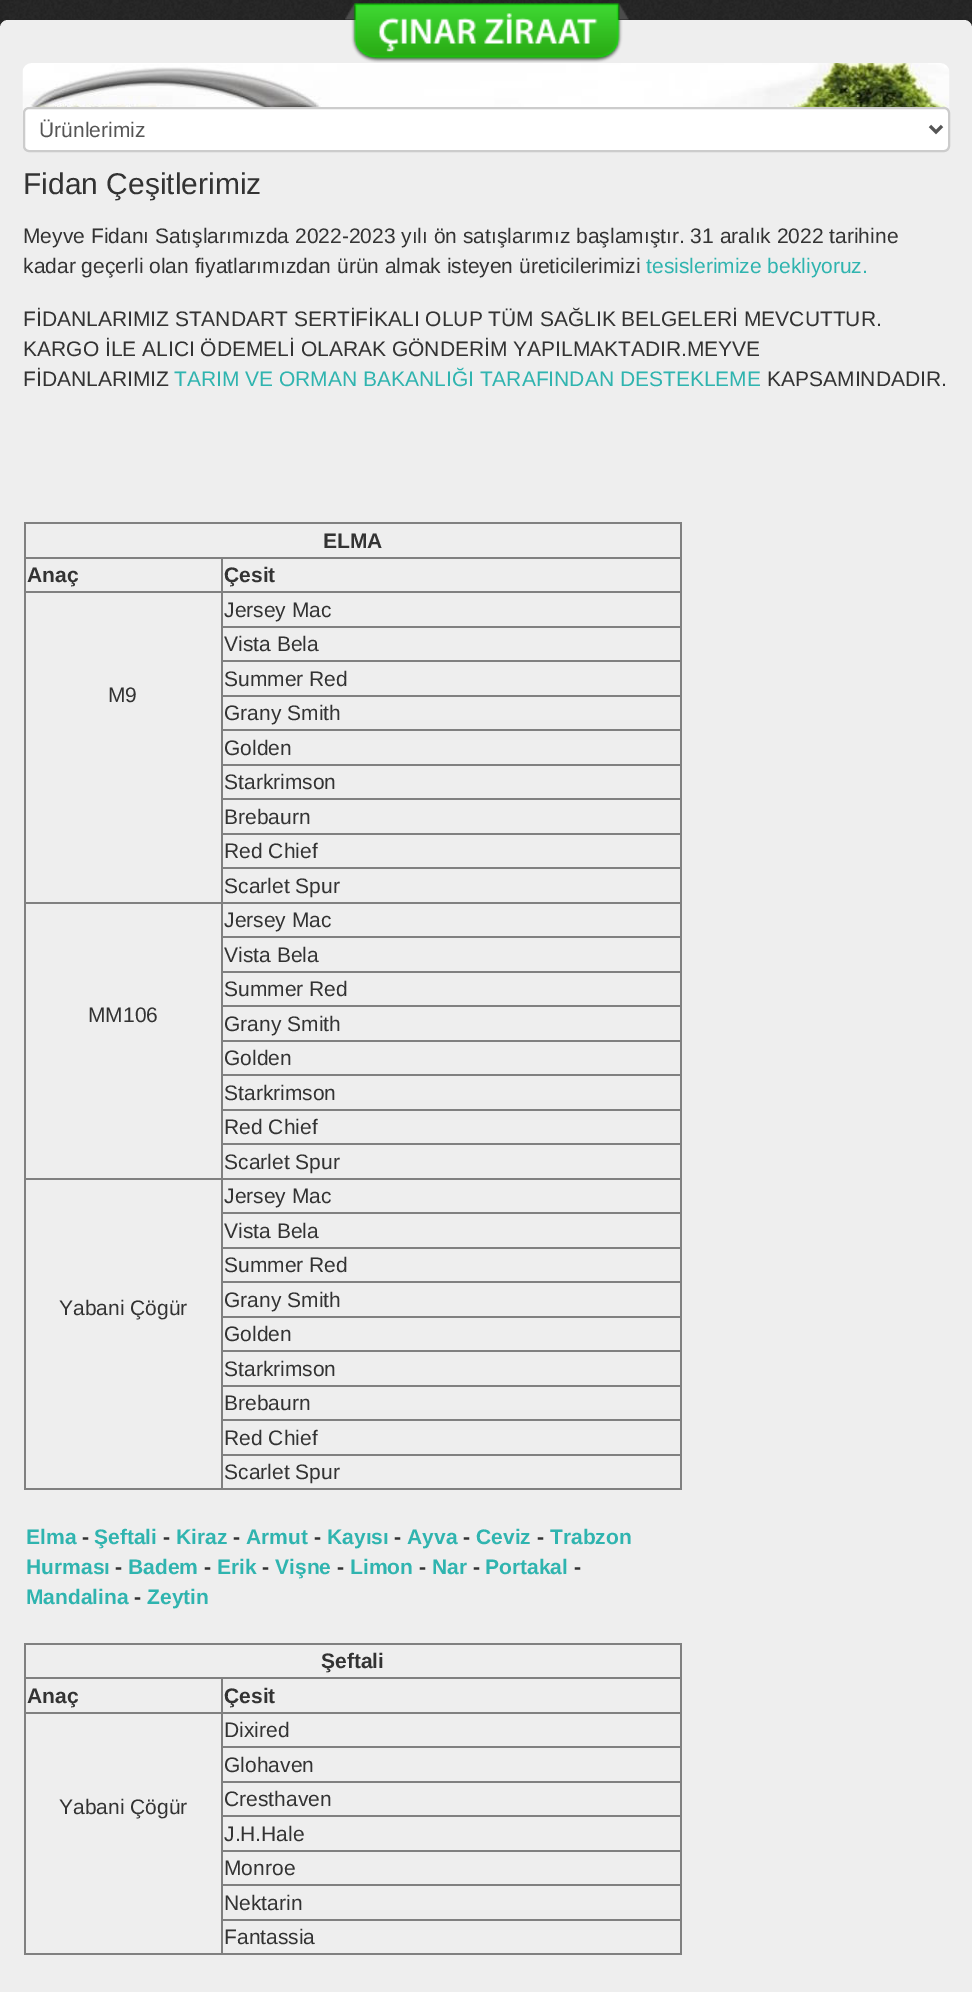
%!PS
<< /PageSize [972 1992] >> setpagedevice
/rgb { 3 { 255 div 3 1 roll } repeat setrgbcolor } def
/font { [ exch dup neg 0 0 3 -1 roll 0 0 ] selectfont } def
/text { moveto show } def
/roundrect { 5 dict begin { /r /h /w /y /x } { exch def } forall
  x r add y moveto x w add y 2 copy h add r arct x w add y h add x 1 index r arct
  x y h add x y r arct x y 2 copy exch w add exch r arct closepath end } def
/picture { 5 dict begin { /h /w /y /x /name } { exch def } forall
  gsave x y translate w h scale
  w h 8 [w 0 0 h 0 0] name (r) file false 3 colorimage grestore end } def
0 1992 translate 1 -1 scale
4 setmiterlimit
255 255 255 rgb
0 0 972 1992 rectfill
(img_01.rgb) 0 0 972 28 picture
238 238 238 rgb
0 20 972 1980 8 roundrect fill
(img_02.rgb) 345 3 284 60 picture
(img_03.rgb) 22 63 928 53 picture
255 255 255 rgb
24 108 925 43 5 roundrect gsave fill grestore
204 204 204 rgb
2 setlinewidth
stroke
85 85 85 rgb
3 setlinewidth
930 126 moveto 6 6 rlineto 6 -6 rlineto stroke
128 128 128 rgb
24 522 657 2 rectfill
680 522 2 968 rectfill
24 1488 657 2 rectfill
24 522 2 968 rectfill
221 557 460 2 rectfill
221 591 460 2 rectfill
221 626 460 2 rectfill
221 660 460 2 rectfill
221 695 460 2 rectfill
221 729 460 2 rectfill
221 764 460 2 rectfill
221 798 460 2 rectfill
221 833 460 2 rectfill
221 867 460 2 rectfill
221 902 460 2 rectfill
221 936 460 2 rectfill
221 971 460 2 rectfill
221 1005 460 2 rectfill
221 1040 460 2 rectfill
221 1074 460 2 rectfill
221 1109 460 2 rectfill
221 1143 460 2 rectfill
221 1178 460 2 rectfill
221 1212 460 2 rectfill
221 1247 460 2 rectfill
221 1281 460 2 rectfill
221 1316 460 2 rectfill
221 1350 460 2 rectfill
221 1385 460 2 rectfill
221 1419 460 2 rectfill
221 1454 460 2 rectfill
221 1454 2 36 rectfill
221 1419 2 36 rectfill
221 1385 2 36 rectfill
221 1350 2 36 rectfill
221 1316 2 36 rectfill
221 1281 2 36 rectfill
221 1247 2 36 rectfill
221 1212 2 36 rectfill
221 1178 2 36 rectfill
24 1178 198 2 rectfill
221 1143 2 36 rectfill
221 1109 2 36 rectfill
221 1074 2 36 rectfill
221 1040 2 36 rectfill
221 1005 2 36 rectfill
221 971 2 36 rectfill
221 936 2 36 rectfill
221 902 2 36 rectfill
24 902 198 2 rectfill
221 867 2 36 rectfill
221 833 2 36 rectfill
221 798 2 36 rectfill
221 764 2 36 rectfill
221 729 2 36 rectfill
221 695 2 36 rectfill
221 660 2 36 rectfill
221 626 2 36 rectfill
221 591 2 36 rectfill
24 591 198 2 rectfill
221 557 2 36 rectfill
24 557 198 2 rectfill
24 1643 657 2 rectfill
680 1643 2 312 rectfill
24 1953 657 2 rectfill
24 1643 2 312 rectfill
221 1677 460 2 rectfill
221 1712 460 2 rectfill
221 1746 460 2 rectfill
221 1781 460 2 rectfill
221 1815 460 2 rectfill
221 1850 460 2 rectfill
221 1884 460 2 rectfill
221 1919 460 2 rectfill
221 1919 2 36 rectfill
221 1884 2 36 rectfill
221 1850 2 36 rectfill
221 1815 2 36 rectfill
221 1781 2 36 rectfill
221 1746 2 36 rectfill
221 1712 2 36 rectfill
24 1712 198 2 rectfill
221 1677 2 36 rectfill
24 1677 198 2 rectfill
/LiberationSans-Regular 21 font
85 85 85 rgb
(Ürünlerimiz) 39 137 text
/LiberationSans-Regular 30 font
51 51 51 rgb
(Fidan Çeşitlerimiz) 23 194 text
/LiberationSans-Regular 21 font
(Meyve Fidanı Satışlarımızda 2022-2023 yılı ön satışlarımız başlamıştır. 31 aralık 2022 tarihine) 23 243 text
(kadar geçerli olan fiyatlarımızdan ürün almak isteyen üreticilerimizi) 23 273 text
47 180 175 rgb
(tesislerimize bekliyoruz.) 646 273 text
51 51 51 rgb
(FİDANLARIMIZ STANDART SERTİFİKALI OLUP TÜM SAĞLIK BELGELERİ MEVCUTTUR.) 23 326 text
(KARGO İLE ALICI ÖDEMELİ OLARAK GÖNDERİM YAPILMAKTADIR.MEYVE) 23 356 text
(FİDANLARIMIZ) 23 386 text
47 180 175 rgb
(TARIM VE ORMAN BAKANLIĞI TARAFINDAN DESTEKLEME) 174 386 text
51 51 51 rgb
(KAPSAMINDADIR.) 767 386 text
/LiberationSans-Bold 21 font
(ELMA) 323 548 text
(Anaç) 27 582 text
(Çesit) 224 582 text
/LiberationSans-Regular 21 font
(Jersey Mac) 224 617 text
(Vista Bela) 224 651 text
(Summer Red) 224 686 text
(M9) 108 702 text
(Grany Smith) 224 720 text
(Golden) 224 755 text
(Starkrimson) 224 789 text
(Brebaurn) 224 824 text
(Red Chief) 224 858 text
(Scarlet Spur) 224 893 text
(Jersey Mac) 224 927 text
(Vista Bela) 224 962 text
(Summer Red) 224 996 text
(MM106) 88 1022 text
(Grany Smith) 224 1031 text
(Golden) 224 1065 text
(Starkrimson) 224 1100 text
(Red Chief) 224 1134 text
(Scarlet Spur) 224 1169 text
(Jersey Mac) 224 1203 text
(Vista Bela) 224 1238 text
(Summer Red) 224 1272 text
(Yabani Çögür) 59 1315 text
(Grany Smith) 224 1307 text
(Golden) 224 1341 text
(Starkrimson) 224 1376 text
(Brebaurn) 224 1410 text
(Red Chief) 224 1445 text
(Scarlet Spur) 224 1479 text
/LiberationSans-Bold 21 font
47 180 175 rgb
(Elma) 26 1544 text
51 51 51 rgb
(-) 82 1544 text
47 180 175 rgb
(Şeftali) 94 1544 text
51 51 51 rgb
(-) 163 1544 text
47 180 175 rgb
(Kiraz) 176 1544 text
51 51 51 rgb
(-) 233 1544 text
47 180 175 rgb
(Armut) 246 1544 text
51 51 51 rgb
(-) 314 1544 text
47 180 175 rgb
(Kayısı) 327 1544 text
51 51 51 rgb
(-) 394 1544 text
47 180 175 rgb
(Ayva) 407 1544 text
51 51 51 rgb
(-) 463 1544 text
47 180 175 rgb
(Ceviz) 476 1544 text
51 51 51 rgb
(-) 537 1544 text
47 180 175 rgb
(Trabzon) 550 1544 text
(Hurması) 26 1574 text
51 51 51 rgb
(-) 115 1574 text
47 180 175 rgb
(Badem) 128 1574 text
51 51 51 rgb
(-) 204 1574 text
47 180 175 rgb
(Erik) 217 1574 text
51 51 51 rgb
(-) 262 1574 text
47 180 175 rgb
(Vişne) 275 1574 text
51 51 51 rgb
(-) 337 1574 text
47 180 175 rgb
(Limon) 350 1574 text
51 51 51 rgb
(-) 419 1574 text
47 180 175 rgb
(Nar) 432 1574 text
51 51 51 rgb
(-) 473 1574 text
47 180 175 rgb
(Portakal) 485 1574 text
51 51 51 rgb
(-) 574 1574 text
47 180 175 rgb
(Mandalina) 26 1604 text
51 51 51 rgb
(-) 134 1604 text
47 180 175 rgb
(Zeytin) 147 1604 text
51 51 51 rgb
(Şeftali) 321 1668 text
(Anaç) 27 1703 text
(Çesit) 224 1703 text
/LiberationSans-Regular 21 font
(Dixired) 224 1737 text
(Glohaven) 224 1772 text
(Yabani Çögür) 59 1814 text
(Cresthaven) 224 1806 text
(J.H.Hale) 224 1841 text
(Monroe) 224 1875 text
(Nektarin) 224 1910 text
(Fantassia) 224 1944 text
showpage
